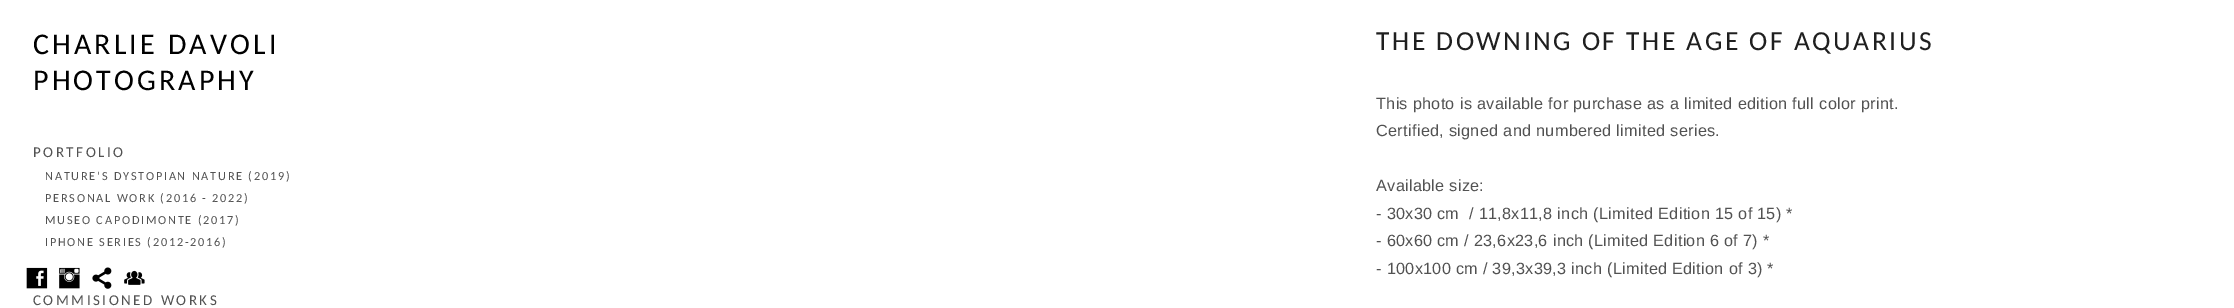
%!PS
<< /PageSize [2234 308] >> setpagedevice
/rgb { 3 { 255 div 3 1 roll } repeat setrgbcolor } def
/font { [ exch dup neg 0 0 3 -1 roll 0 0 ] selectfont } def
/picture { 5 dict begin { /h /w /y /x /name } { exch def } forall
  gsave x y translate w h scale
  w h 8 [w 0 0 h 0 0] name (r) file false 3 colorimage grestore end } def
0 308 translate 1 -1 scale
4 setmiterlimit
255 255 255 rgb
0 0 2234 308 rectfill
(img_01.rgb) 26 267 22 22 picture
(img_02.rgb) 59 267 21 22 picture
(img_03.rgb) 92 267 20 22 picture
(img_04.rgb) 124 270 21 15 picture
/Carlito-Regular 30 font
0 0 0 rgb
33 54 moveto 3.1 0 (CHARLIE DAVOLI) ashow
33 90 moveto 3.1 0 (PHOTOGRAPHY) ashow
/Carlito-Regular 15 font
82 82 82 rgb
33 157 moveto 2.5 0 (PORTFOLIO) ashow
/Carlito-Regular 12.3 font
45 180 moveto 1.75 0 (NATURE'S DYSTOPIAN NATURE \(2019\)) ashow
45 202 moveto 1.75 0 (PERSONAL WORK \(2016 - 2022\)) ashow
45 224 moveto 1.75 0 (MUSEO CAPODIMONTE \(2017\)) ashow
45 246 moveto 1.75 0 (IPHONE SERIES \(2012-2016\)) ashow
/Carlito-Regular 15 font
33 305 moveto 2.5 0 (COMMISIONED WORKS) ashow
/Carlito-Regular 27.5 font
31 31 31 rgb
1376 50 moveto 2.5 0 (THE DOWNING OF THE AGE OF AQUARIUS) ashow
/LiberationSans-Regular 16.25 font
82 82 82 rgb
1376 109 moveto 0.3 0 (This photo is available for purchase as a limited edition full color print.) ashow
1376 136 moveto 0.3 0 (Certified, signed and numbered limited series.) ashow
1376 191 moveto 0.3 0 (Available size:) ashow
1376 219 moveto 0.3 0 (- 30x30 cm  / 11,8x11,8 inch \(Limited Edition 15 of 15\) *) ashow
1376 246 moveto 0.3 0 (- 60x60 cm / 23,6x23,6 inch \(Limited Edition 6 of 7\) *) ashow
1376 274 moveto 0.3 0 (- 100x100 cm / 39,3x39,3 inch \(Limited Edition of 3\) *) ashow
showpage
